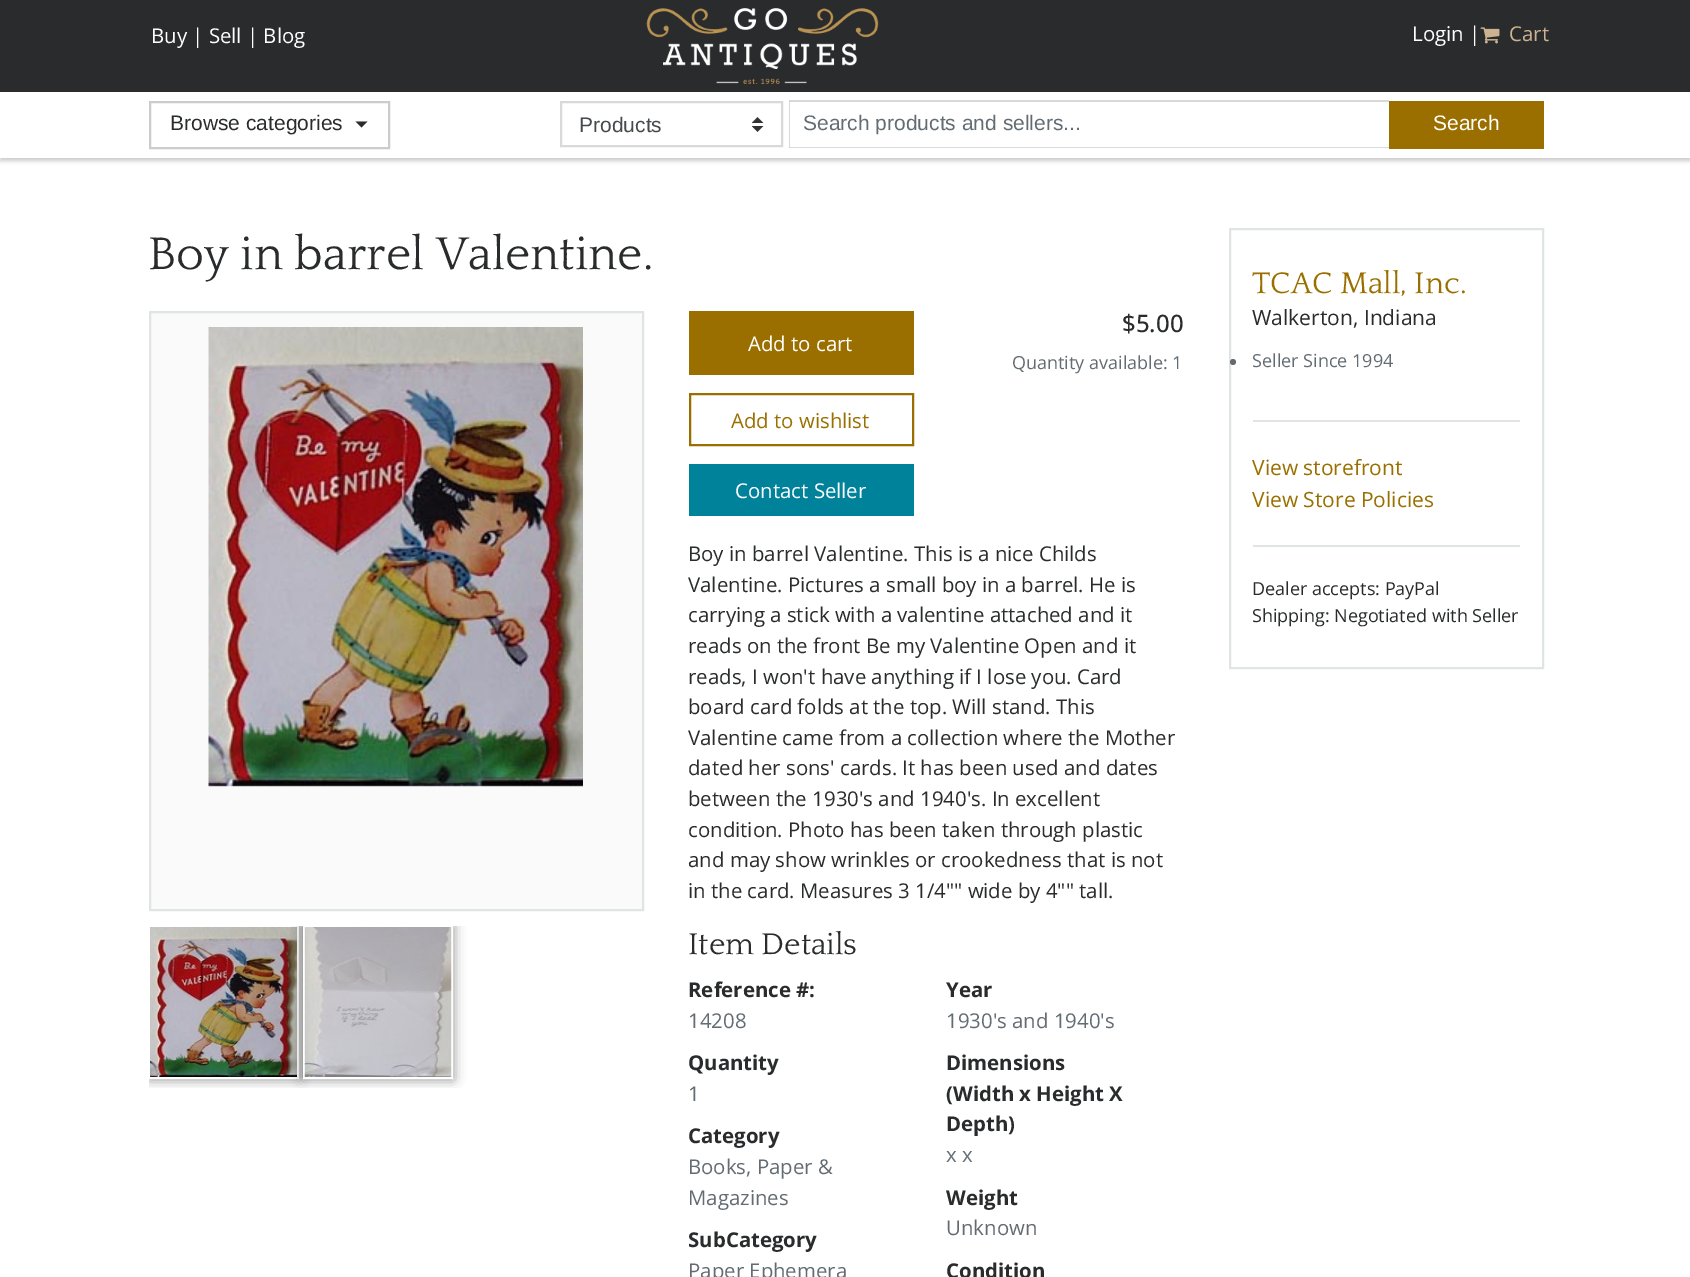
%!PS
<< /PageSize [1690 1277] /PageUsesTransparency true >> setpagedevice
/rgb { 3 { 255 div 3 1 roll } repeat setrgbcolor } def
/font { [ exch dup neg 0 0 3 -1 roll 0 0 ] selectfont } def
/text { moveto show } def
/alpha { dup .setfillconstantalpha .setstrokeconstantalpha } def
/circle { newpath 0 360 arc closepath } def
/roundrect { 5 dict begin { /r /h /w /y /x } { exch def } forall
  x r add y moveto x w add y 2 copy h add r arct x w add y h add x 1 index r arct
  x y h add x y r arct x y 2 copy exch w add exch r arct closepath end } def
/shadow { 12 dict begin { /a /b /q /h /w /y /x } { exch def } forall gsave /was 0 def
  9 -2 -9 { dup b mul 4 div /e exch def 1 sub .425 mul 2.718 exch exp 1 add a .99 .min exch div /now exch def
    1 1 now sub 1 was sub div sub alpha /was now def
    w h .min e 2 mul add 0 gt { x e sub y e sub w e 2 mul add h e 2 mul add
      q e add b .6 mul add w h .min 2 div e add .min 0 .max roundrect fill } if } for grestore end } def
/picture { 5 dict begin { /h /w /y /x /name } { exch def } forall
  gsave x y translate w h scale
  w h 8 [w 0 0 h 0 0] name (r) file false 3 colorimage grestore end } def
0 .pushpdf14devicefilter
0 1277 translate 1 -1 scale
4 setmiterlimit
255 255 255 rgb
0 0 1690 1277 rectfill
0 0 0 rgb
0 95 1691 66 0 2 0.2 shadow
41 43 44 rgb
0 0 1690 92 rectfill
(img_01.rgb) 646 8 233 76 picture
(img_02.rgb) 1480 27 20 17 picture
255 255 255 rgb
0 92 1690 66 rectfill
204 204 204 rgb
2 setlinewidth
150 102 239 46 rectstroke
41 43 44 rgb
355.5 121.5 moveto 12 0 rlineto -6 6 rlineto closepath fill
(img_03.rgb) 752 117 12 15 picture
217 217 217 rgb
561 102 221 44 rectstroke
789 100 moveto 600 0 rlineto 0 2 rlineto -599 0 rlineto closepath fill
1389 148 moveto -600 0 rlineto 1 -1 rlineto 599 0 rlineto closepath fill
0.15 alpha
0 0 0 rgb
789 148 moveto 0 -48 rlineto 1 2 rlineto 0 45 rlineto closepath fill
1 alpha
154 111 0 rgb
1389 101 155 48 rectfill
250 250 250 rgb
150 312 moveto 493 0 rlineto 0 598 rlineto -493 0 rlineto closepath gsave fill grestore
224 228 228 rgb
stroke
(img_04.rgb) 208 327 375 460 picture
gsave
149 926 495 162 rectclip
0 0 0 rgb
149 926 150 153 0 6 0.5 shadow
grestore
255 255 255 rgb
150 927 148 151 rectstroke
(img_05.rgb) 150 927 147 150 picture
gsave
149 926 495 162 rectclip
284 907 moveto 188 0 rlineto 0 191 rlineto -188 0 rlineto closepath 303 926 moveto 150 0 rlineto 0 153 rlineto -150 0 rlineto closepath eoclip newpath
0 0 0 rgb
303 926 150 153 0 6 0.5 shadow
grestore
304 927 148 151 rectstroke
(img_06.rgb) 304 927 148 150 picture
154 111 0 rgb
689 311 225 64 rectfill
690 394 223 51 rectstroke
0 130 155 rgb
689 464 225 52 rectfill
224 228 228 rgb
1230 229 313 439 rectstroke
99 108 114 rgb
1233 362 3 circle fill
224 228 228 rgb
1253 420 267 2 rectfill
1253 545 267 2 rectfill
/OpenSans-Regular 20.4 font
255 255 255 rgb
(Buy | Sell | Blog) 151 43 text
(Login |) 1412 41 text
205 178 146 rgb
(Cart) 1509 41 text
/LiberationSans-Regular 21 font
41 43 44 rgb
(Browse categories) 170 130 text
70 74 76 rgb
(Products) 579 132 text
99 108 114 rgb
(Search products and sellers...) 803 130 text
255 255 255 rgb
(Search) 1433 130 text
/Quattrocento-Regular 48 font
41 43 44 rgb
(Boy in barrel Valentine.) 148 269 text
/OpenSans-Regular 20.4 font
255 255 255 rgb
(Add to cart) 748 351 text
154 111 0 rgb
(Add to wishlist) 731 428 text
255 255 255 rgb
(Contact Seller) 735 498 text
/OpenSans-Medium 24 font
41 43 44 rgb
($5.00) 1122 332 text
/OpenSans-Regular 18 font
99 108 114 rgb
(Quantity available: 1) 1012 369 text
/OpenSans-Regular 20.4 font
41 43 44 rgb
(Boy in barrel Valentine. This is a nice Childs) 688 561 text
(Valentine. Pictures a small boy in a barrel. He is) 688 592 text
(carrying a stick with a valentine attached and it) 688 622 text
(reads on the front Be my Valentine Open and it) 688 653 text
(reads, I won't have anything if I lose you. Card) 688 684 text
(board card folds at the top. Will stand. This) 688 714 text
(Valentine came from a collection where the Mother) 688 745 text
(dated her sons' cards. It has been used and dates) 688 775 text
(between the 1930's and 1940's. In excellent) 688 806 text
(condition. Photo has been taken through plastic) 688 837 text
(and may show wrinkles or crookedness that is not) 688 867 text
(in the card. Measures 3 1/4"" wide by 4"" tall.) 688 898 text
/Quattrocento-Regular 31.25 font
(Item Details) 688 954 text
/OpenSans-Bold 20.4 font
(Reference #:) 688 997 text
(Year) 946 997 text
/OpenSans-Regular 20.4 font
99 108 114 rgb
(14208) 688 1028 text
(1930's and 1940's) 946 1028 text
/OpenSans-Bold 20.4 font
41 43 44 rgb
(Quantity) 688 1070 text
(Dimensions) 946 1070 text
(\(Width x Height X) 946 1101 text
(Depth\)) 946 1131 text
/OpenSans-Regular 20.4 font
99 108 114 rgb
(1) 688 1101 text
/OpenSans-Bold 20.4 font
41 43 44 rgb
(Category) 688 1143 text
/OpenSans-Regular 20.4 font
99 108 114 rgb
(x x) 946 1162 text
(Books, Paper &) 688 1174 text
(Magazines) 688 1205 text
/OpenSans-Bold 20.4 font
41 43 44 rgb
(Weight) 946 1205 text
/OpenSans-Regular 20.4 font
99 108 114 rgb
(Unknown) 946 1235 text
/OpenSans-Bold 20.4 font
41 43 44 rgb
(SubCategory) 688 1247 text
/OpenSans-Regular 20.4 font
99 108 114 rgb
(Paper Ephemera) 688 1278 text
/OpenSans-Bold 20.4 font
41 43 44 rgb
(Condition) 946 1278 text
/Quattrocento-Regular 31.25 font
154 111 0 rgb
(TCAC Mall, Inc.) 1252 293 text
/OpenSans-Regular 21 font
41 43 44 rgb
(Walkerton, Indiana) 1252 325 text
/OpenSans-Regular 18 font
99 108 114 rgb
(Seller Since 1994) 1252 367 text
/OpenSans-Regular 21 font
154 111 0 rgb
(View storefront) 1252 475 text
(View Store Policies) 1252 507 text
/OpenSans-Regular 18 font
41 43 44 rgb
(Dealer accepts: PayPal) 1252 595 text
(Shipping: Negotiated with Seller) 1252 622 text
.poppdf14devicefilter showpage
